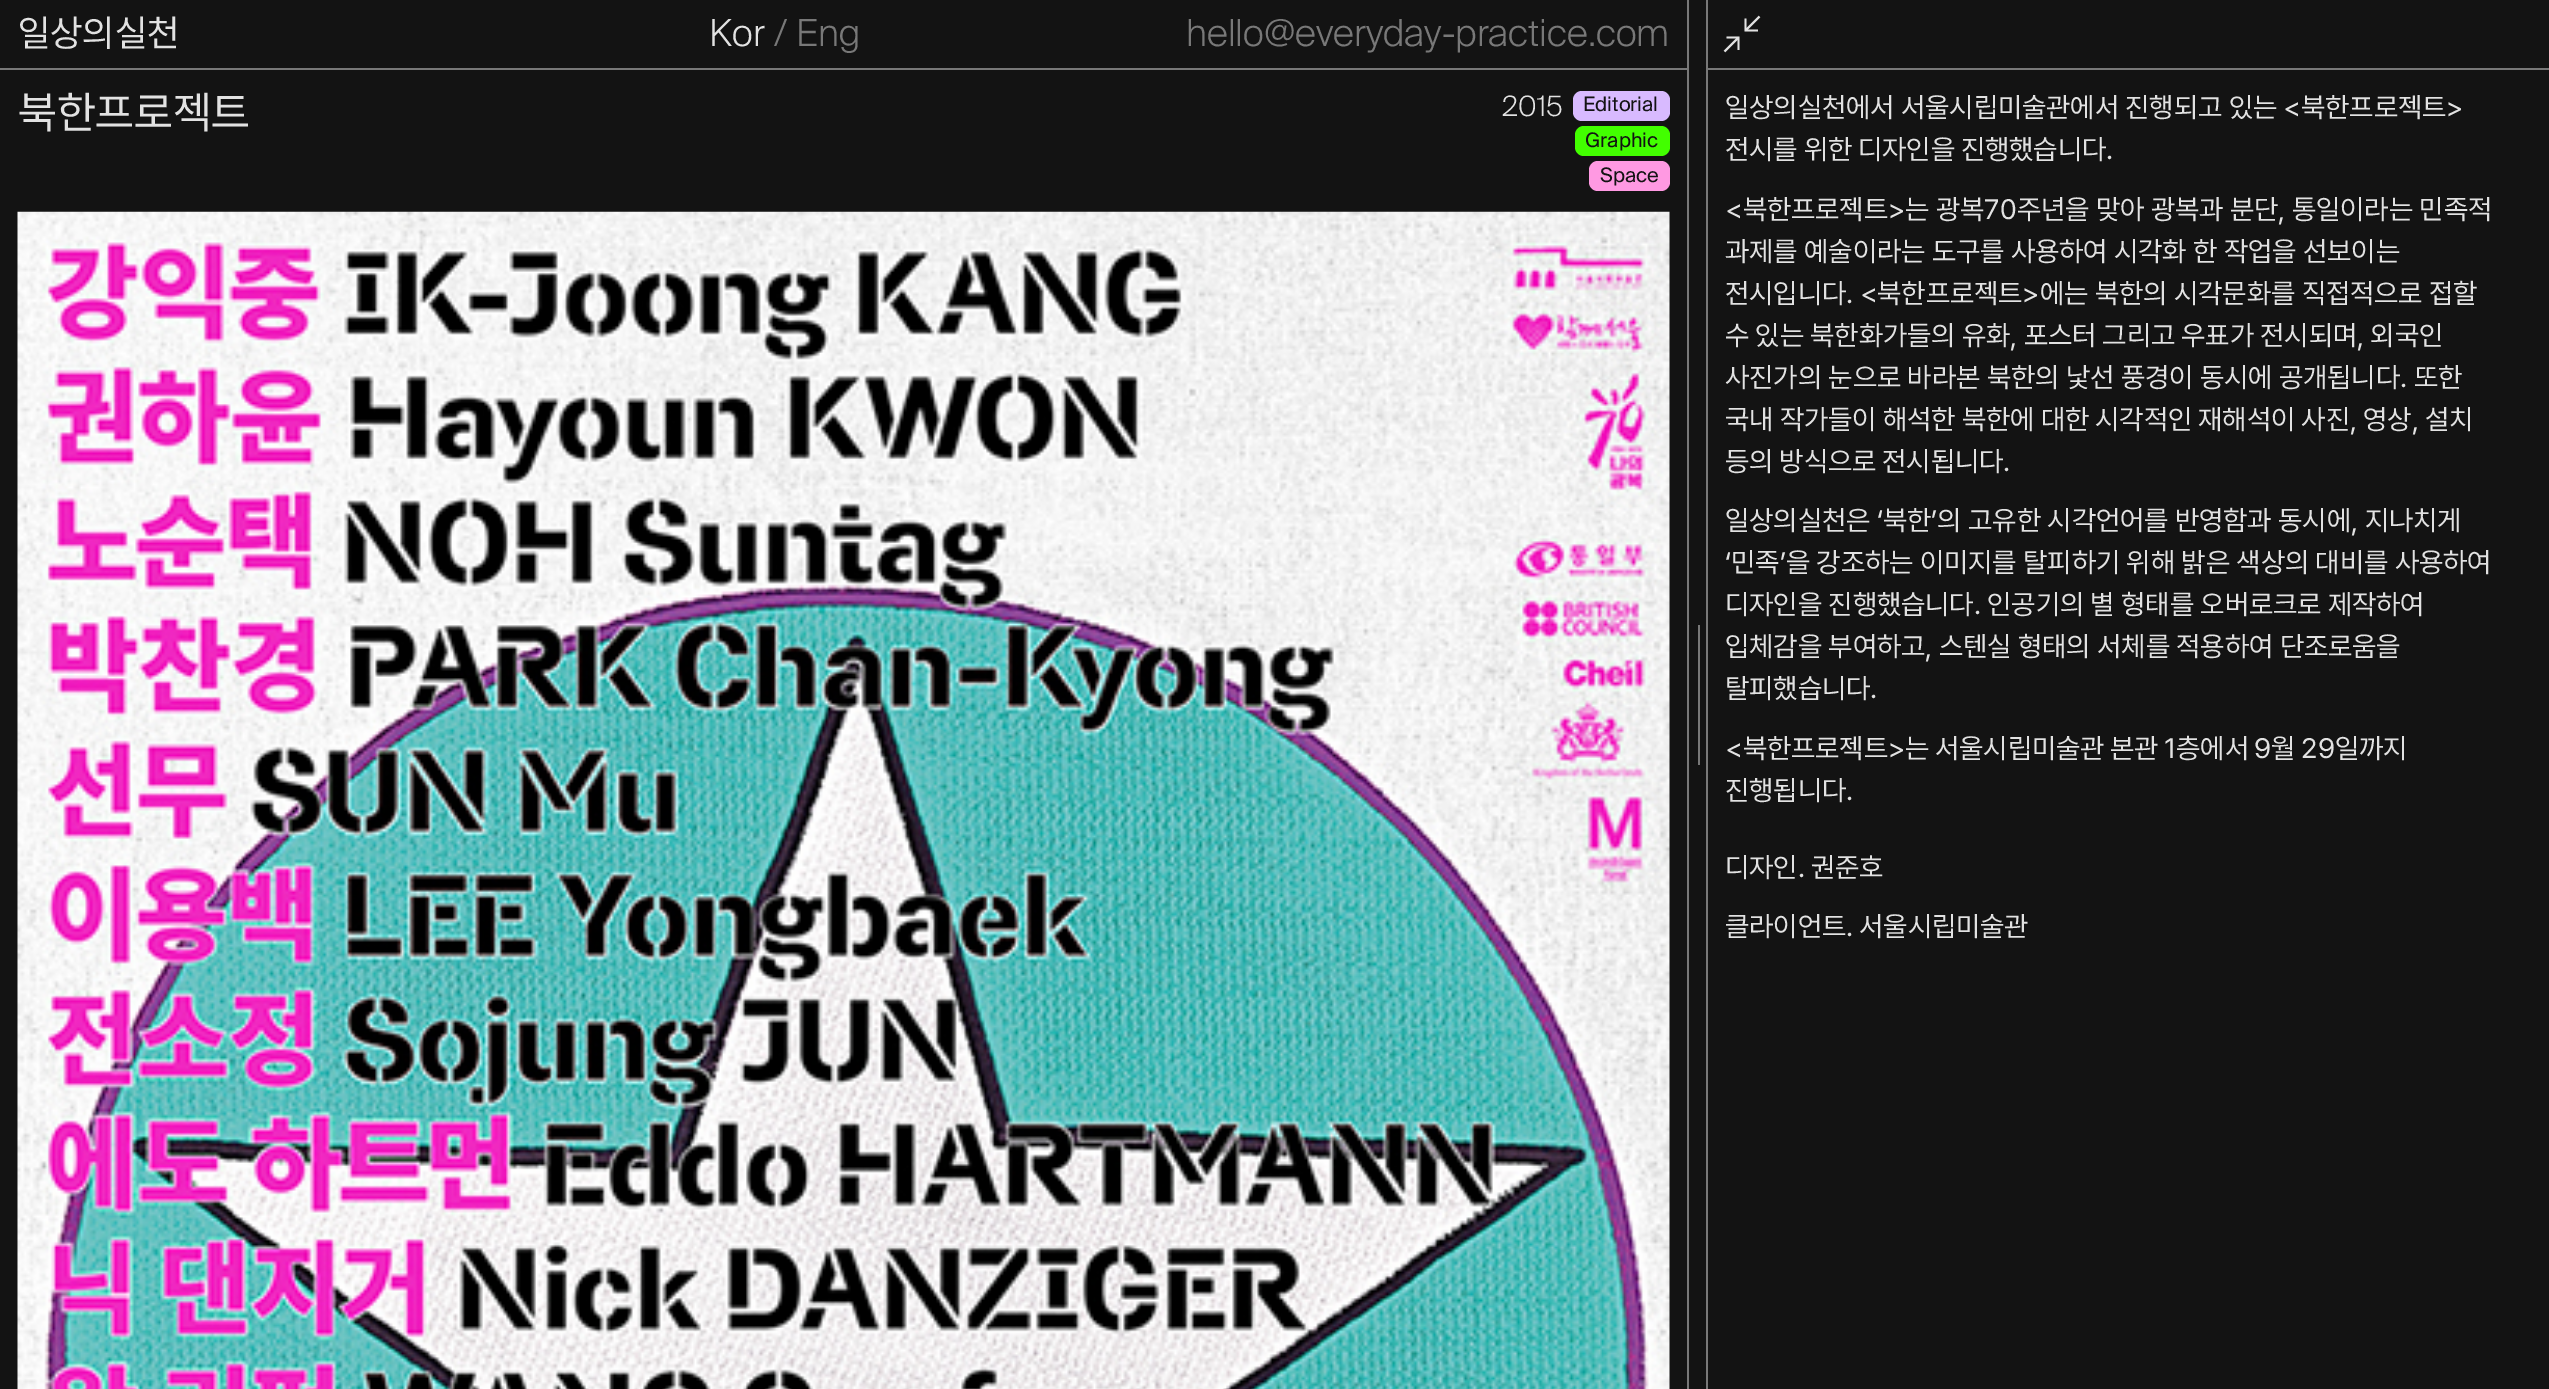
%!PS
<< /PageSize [2549 1389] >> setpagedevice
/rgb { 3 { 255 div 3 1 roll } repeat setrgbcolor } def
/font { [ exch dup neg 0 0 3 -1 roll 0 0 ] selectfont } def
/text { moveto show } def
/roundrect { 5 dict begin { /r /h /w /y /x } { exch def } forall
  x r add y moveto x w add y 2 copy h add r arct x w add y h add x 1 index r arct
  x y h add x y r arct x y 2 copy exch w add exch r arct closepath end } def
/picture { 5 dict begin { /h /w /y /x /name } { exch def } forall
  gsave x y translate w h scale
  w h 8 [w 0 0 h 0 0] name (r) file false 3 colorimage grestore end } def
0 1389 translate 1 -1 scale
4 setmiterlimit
19 19 19 rgb
0 0 2549 1389 rectfill
120 120 120 rgb
1687 0 2 1389 rectfill
0 68 1687 2 rectfill
216 186 255 rgb
1573 91 97 30 9 roundrect fill
66 255 0 rgb
1575 126 95 30 9 roundrect fill
255 153 226 rgb
1589 161 81 30 9 roundrect fill
(img_01.rgb) 17 211 1653 1178 picture
120 120 120 rgb
1698 625 2 140 rectfill
1706 0 2 1389 rectfill
1708 68 841 2 rectfill
226 226 226 rgb
1.8 setlinewidth
1758 30.5 moveto -12.5 0 rlineto 0 -12 rlineto 1745.5 30.5 moveto 14 -14 rlineto 1726.5 37.5 moveto 12 0 rlineto 0 12.5 rlineto 1738.5 37.5 moveto -14 14 rlineto stroke
/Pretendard-Regular 37.3 font
(일상의실천) 18 46 text
/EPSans-Light 37.3 font
(Kor) 709 46 text
120 120 120 rgb
(/ Eng) 774 46 text
(hello@everyday-practice.com) 1186 46 text
/Pretendard-Regular 44.75 font
226 226 226 rgb
(북한프로젝트) 18 128 text
/EPSans-Light 28 font
(2015) 1502 116 text
/EPSans-Regular 20 font
19 19 19 rgb
(Editorial) 1583 111 text
(Graphic) 1585 147 text
(Space) 1600 182 text
/Pretendard-Regular 28 font
226 226 226 rgb
1725 117 moveto -0.5 0 32 (일상의실천에서 서울시립미술관에서 진행되고 있는 <북한프로젝트>) widthshow
1725 159 moveto -1 0 32 (전시를 위한 디자인을 진행했습니다.) widthshow
1725 219 moveto -0.5 0 32 (<북한프로젝트>는 광복70주년을 맞아 광복과 분단, 통일이라는 민족적) widthshow
1725 261 moveto -0.5 0 32 (과제를 예술이라는 도구를 사용하여 시각화 한 작업을 선보이는) widthshow
1725 303 moveto -0.5 0 32 (전시입니다. <북한프로젝트>에는 북한의 시각문화를 직접적으로 접할) widthshow
1725 345 moveto -0.75 0 32 (수 있는 북한화가들의 유화, 포스터 그리고 우표가 전시되며, 외국인) widthshow
1725 387 moveto -0.5 0 32 (사진가의 눈으로 바라본 북한의 낯선 풍경이 동시에 공개됩니다. 또한) widthshow
1725 429 moveto -0.75 0 32 (국내 작가들이 해석한 북한에 대한 시각적인 재해석이 사진, 영상, 설치) widthshow
1725 471 moveto -1 0 32 (등의 방식으로 전시됩니다.) widthshow
1725 530 moveto -0.5 0 32 (일상의실천은 ‘북한’의 고유한 시각언어를 반영함과 동시에, 지나치게) widthshow
1725 572 moveto -0.5 0 32 (‘민족’을 강조하는 이미지를 탈피하기 위해 밝은 색상의 대비를 사용하여) widthshow
1725 614 moveto -0.5 0 32 (디자인을 진행했습니다. 인공기의 별 형태를 오버로크로 제작하여) widthshow
1725 656 moveto -0.5 0 32 (입체감을 부여하고, 스텐실 형태의 서체를 적용하여 단조로움을) widthshow
(탈피했습니다.) 1725 698 text
1725 758 moveto -1.5 0 32 (<북한프로젝트>는 서울시립미술관 본관 1층에서 9월 29일까지) widthshow
(진행됩니다.) 1725 800 text
1725 877 moveto -1 0 32 (디자인. 권준호) widthshow
1725 936 moveto -1 0 32 (클라이언트. 서울시립미술관) widthshow
showpage
